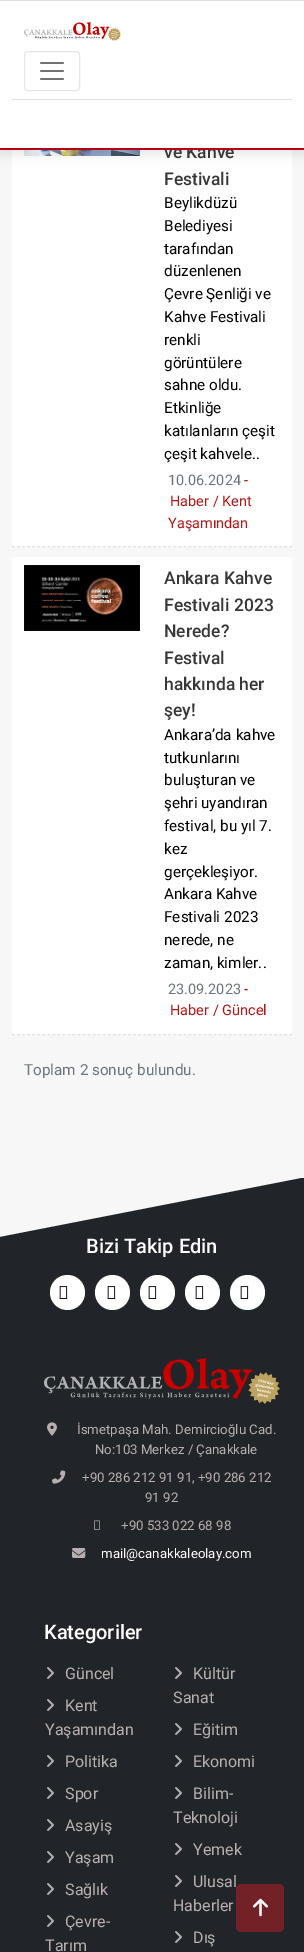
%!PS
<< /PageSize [304 1952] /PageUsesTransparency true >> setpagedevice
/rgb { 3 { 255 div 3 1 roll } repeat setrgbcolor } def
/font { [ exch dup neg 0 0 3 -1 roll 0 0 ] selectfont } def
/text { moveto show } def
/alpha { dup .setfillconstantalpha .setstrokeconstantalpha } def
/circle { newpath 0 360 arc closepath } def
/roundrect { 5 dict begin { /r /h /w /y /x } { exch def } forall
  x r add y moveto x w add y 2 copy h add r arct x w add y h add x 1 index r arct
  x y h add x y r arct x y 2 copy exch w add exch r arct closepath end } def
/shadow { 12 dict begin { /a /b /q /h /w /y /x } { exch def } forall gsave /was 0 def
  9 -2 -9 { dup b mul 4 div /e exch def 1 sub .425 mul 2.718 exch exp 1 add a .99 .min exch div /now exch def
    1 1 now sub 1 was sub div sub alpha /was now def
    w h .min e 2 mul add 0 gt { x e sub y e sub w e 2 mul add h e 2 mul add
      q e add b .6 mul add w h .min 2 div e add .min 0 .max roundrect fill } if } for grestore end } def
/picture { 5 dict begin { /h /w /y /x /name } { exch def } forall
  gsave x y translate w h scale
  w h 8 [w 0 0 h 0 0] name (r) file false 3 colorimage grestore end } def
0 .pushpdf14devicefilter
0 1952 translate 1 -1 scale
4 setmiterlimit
247 247 247 rgb
0 0 304 1952 rectfill
255 255 255 rgb
12 150 280 397 rectfill
(img_03.rgb) 24 150 116 6 picture
0 0 0 rgb
0 4 304 150 0 6 0.1 shadow
222 226 230 rgb
0 0 304 1 rectfill
227 227 227 rgb
[3 2.04] 0 setdash
12 546.5 moveto 280 0 rlineto stroke
255 255 255 rgb
12 557 280 478 rectfill
227 227 227 rgb
12 1034.5 moveto 280 0 rlineto stroke
(img_04.rgb) 24 565 116 66 picture
33 37 41 rgb
0 1237 moveto 0 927 rlineto 304 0 rlineto 0 -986 rlineto -2 0 rlineto closepath fill
255 255 255 rgb
67.5 1292.5 17.5 circle fill
(img_05.rgb) 59 1286 9 13 picture
112.5 1292.5 17.5 circle fill
(img_05.rgb) 107 1286 9 13 picture
157.5 1292.5 17.5 circle fill
(img_05.rgb) 148 1286 9 13 picture
202.5 1292.5 17.5 circle fill
(img_05.rgb) 195 1286 9 13 picture
247.5 1292.5 17.5 circle fill
(img_05.rgb) 240 1286 9 13 picture
(img_06.rgb) 44 1358 236 46 picture
(img_07.rgb) 47 1422 10 14 picture
(img_08.rgb) 52 1470 14 14 picture
(img_09.rgb) 94 1520 6 10 picture
(img_10.rgb) 72 1548 14 10 picture
(img_11.rgb) 47 1667 7 12 picture
(img_11.rgb) 47 1699 7 12 picture
(img_11.rgb) 47 1755 7 12 picture
(img_11.rgb) 47 1787 7 12 picture
(img_11.rgb) 47 1819 7 12 picture
(img_11.rgb) 47 1851 7 12 picture
(img_11.rgb) 47 1883 7 12 picture
(img_11.rgb) 47 1915 7 12 picture
(img_11.rgb) 175 1667 7 12 picture
(img_11.rgb) 175 1723 7 12 picture
(img_11.rgb) 175 1755 7 12 picture
(img_11.rgb) 175 1787 7 12 picture
(img_11.rgb) 175 1843 7 12 picture
(img_11.rgb) 175 1875 7 12 picture
(img_11.rgb) 175 1931 7 12 picture
114 34 39 rgb
236 1884 48 48 5 roundrect fill
(img_12.rgb) 253 1898 15 19 picture
/Roboto-Medium 17.5 font
55 55 55 rgb
(ve Kahve) 164 158 text
255 255 255 rgb
0 1 304 147 rectfill
230 230 230 rgb
[] 0 setdash
24.5 51.5 55 39 3.5 roundrect stroke
(img_02.rgb) 40 62 24 18 picture
(img_01.rgb) 24 22 97 19 picture
222 226 230 rgb
12 99 280 1 rectfill
182 0 24 rgb
0 148 304 2 rectfill
55 55 55 rgb
(Festivali) 164 185 text
/Roboto-Regular 15.25 font
0 0 0 rgb
(Beylikdüzü) 164 208 text
(Belediyesi) 164 231 text
(tarafından) 164 254 text
(düzenlenen) 164 276 text
(Çevre Şenliği ve) 164 299 text
(Kahve Festivali) 164 322 text
(renkli) 164 345 text
(görüntülere) 164 368 text
(sahne oldu.) 164 390 text
(Etkinliğe) 164 413 text
(katılanların çeşit) 164 436 text
(çeşit kahvele..) 164 459 text
/Roboto-Regular 14.5 font
108 117 125 rgb
(10.06.2024) 168 485 text
179 21 21 rgb
(-) 244 485 text
(Haber / Kent) 170 506 text
(Yaşamından) 168 528 text
/Roboto-Medium 17.5 font
55 55 55 rgb
(Ankara Kahve) 164 584 text
(Festivali 2023) 164 611 text
(Nerede?) 164 637 text
(Festival) 164 664 text
(hakkında her) 164 690 text
(şey!) 164 716 text
/Roboto-Regular 15.25 font
0 0 0 rgb
(Ankara’da kahve) 164 740 text
(tutkunlarını) 164 763 text
(buluşturan ve) 164 785 text
(şehri uyandıran) 164 808 text
(festival, bu yıl 7.) 164 831 text
(kez) 164 854 text
(gerçekleşiyor.) 164 877 text
(Ankara Kahve) 164 899 text
(Festivali 2023) 164 922 text
(nerede, ne) 164 945 text
(zaman, kimler..) 164 968 text
/Roboto-Regular 14.5 font
108 117 125 rgb
(23.09.2023) 168 994 text
179 21 21 rgb
(-) 244 994 text
(Haber / Güncel) 170 1015 text
/Roboto-Regular 15.25 font
108 117 125 rgb
(Toplam 2 sonuç bulundu.) 24 1075 text
/Roboto-Medium 20 font
255 255 255 rgb
(Bizi Takip Edin) 86 1253 text
/Roboto-Regular 13.25 font
185 174 174 rgb
(İsmetpaşa Mah. Demircioğlu Cad.) 77 1434 text
(No:103 Merkez / Çanakkale) 95 1454 text
(+90 286 212 91 91, +90 286 212) 82 1482 text
(91 92) 145 1502 text
(+90 533 022 68 98) 121 1530 text
255 255 255 rgb
(mail@canakkaleolay.com) 101 1558 text
/Roboto-Medium 20 font
(Kategoriler) 44 1639 text
/Roboto-Regular 16 font
185 174 174 rgb
(Güncel) 65 1679 text
(Kent) 65 1711 text
(Yaşamından) 45 1735 text
(Politika) 65 1767 text
(Spor) 65 1799 text
(Asayiş) 65 1831 text
(Yaşam) 65 1863 text
(Sağlık) 65 1895 text
(Çevre-) 65 1927 text
(Tarım) 45 1951 text
(Kültür) 193 1679 text
(Sanat) 173 1703 text
(Eğitim) 193 1735 text
(Ekonomi) 193 1767 text
(Bilim-) 193 1799 text
(Teknoloji) 173 1823 text
(Yemek) 193 1855 text
(Ulusal) 193 1887 text
(Haberler) 173 1911 text
(Dış) 193 1943 text
.poppdf14devicefilter showpage
